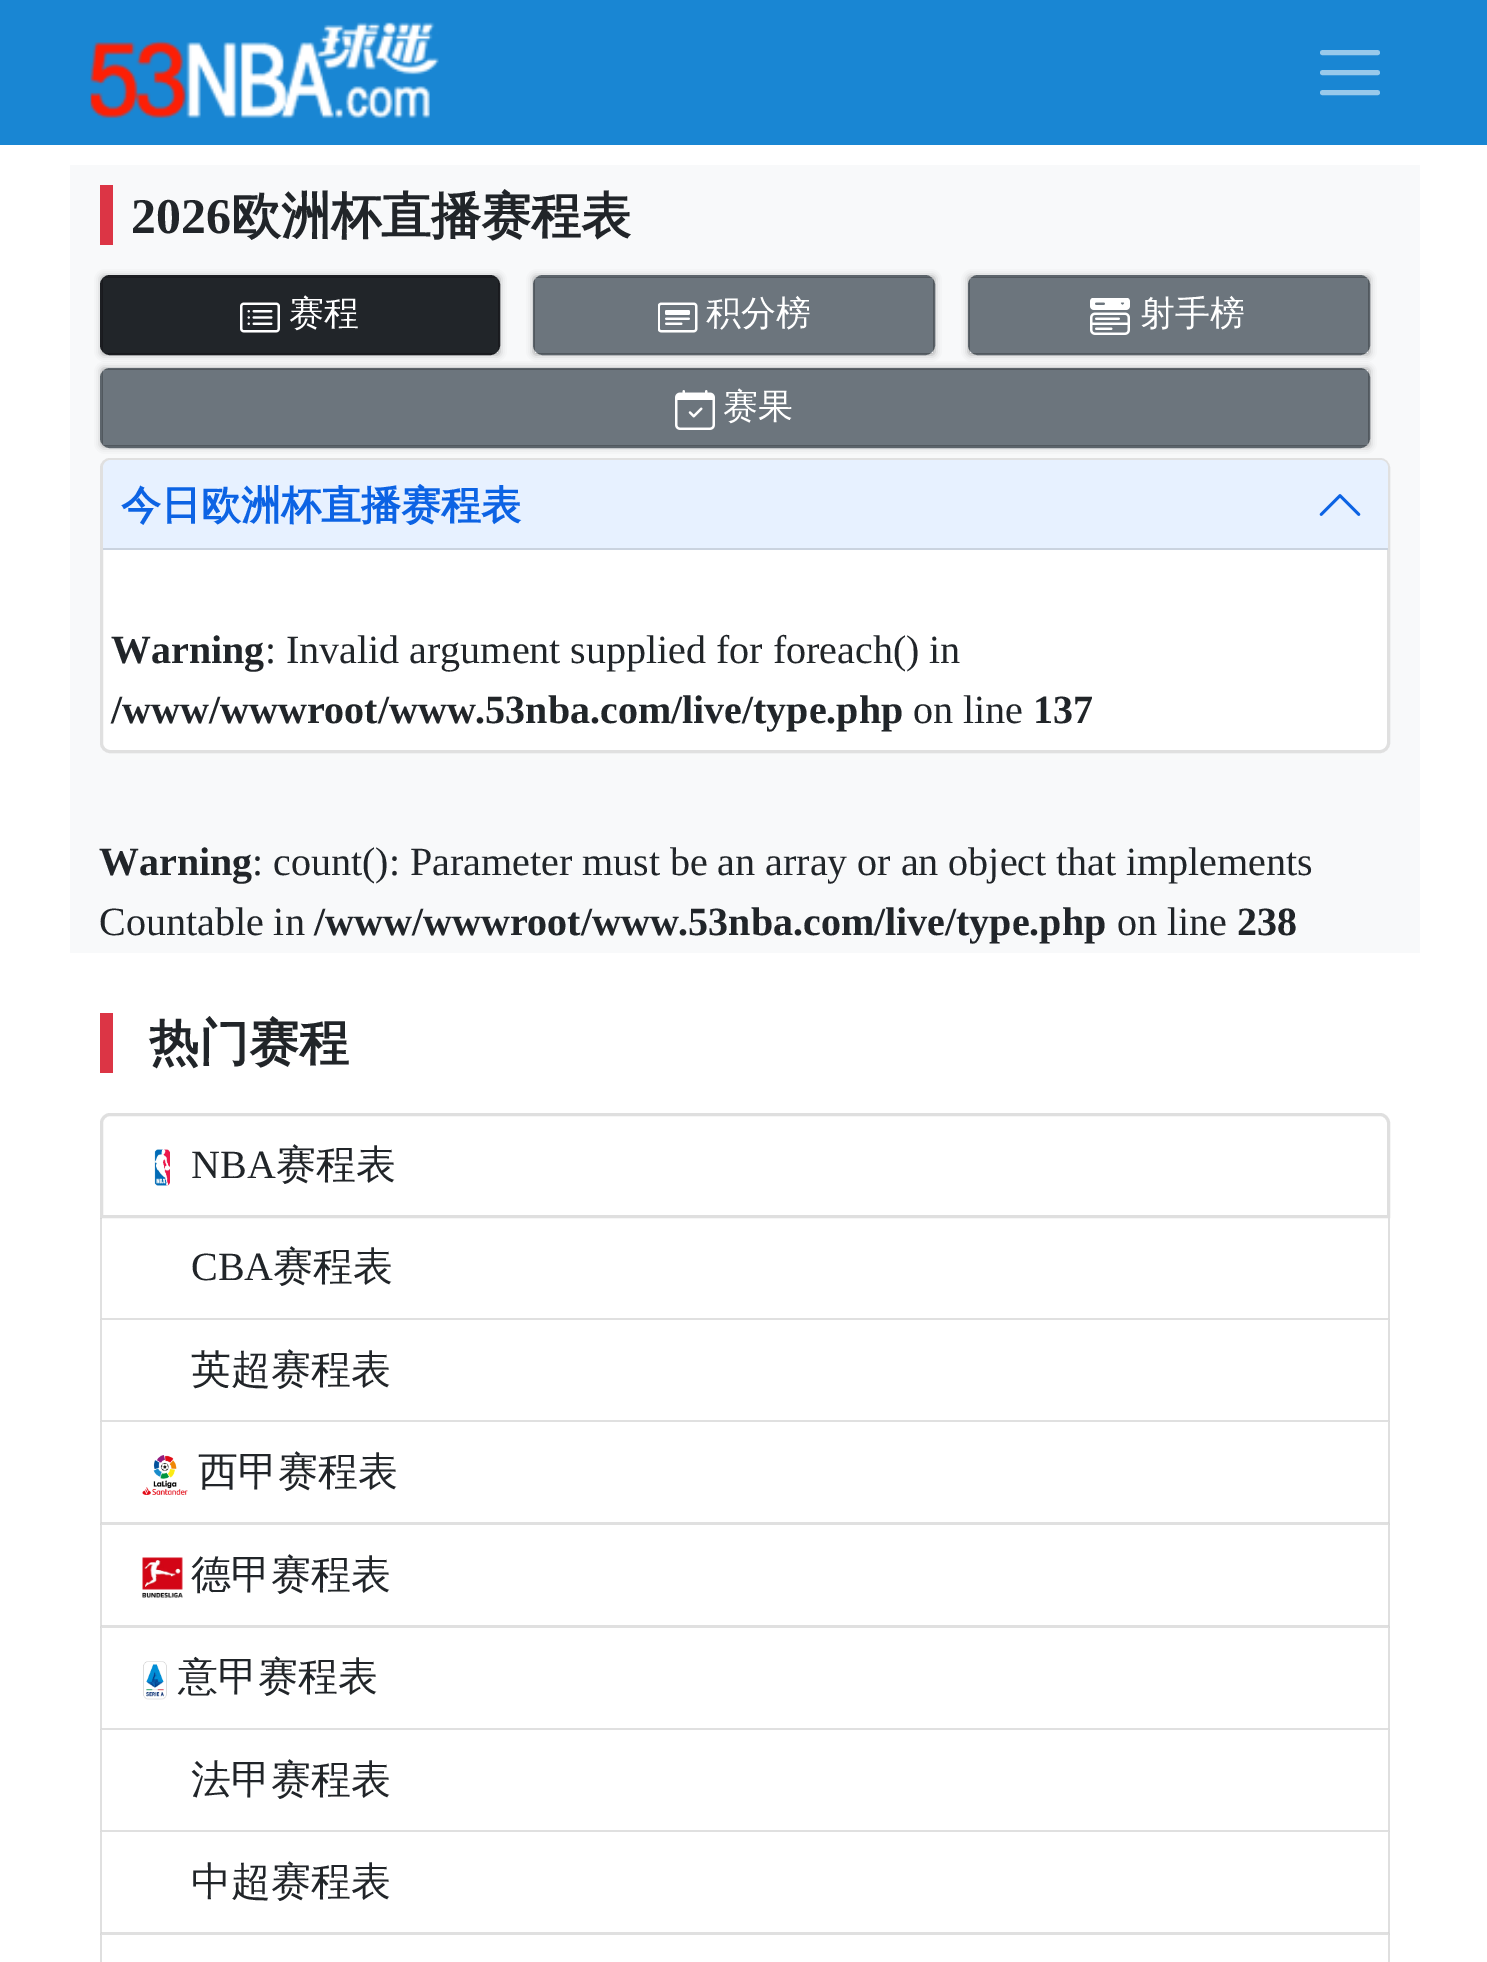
%!PS
<< /PageSize [1487 1962] /PageUsesTransparency true >> setpagedevice
/rgb { 3 { 255 div 3 1 roll } repeat setrgbcolor } def
/font { [ exch dup neg 0 0 3 -1 roll 0 0 ] selectfont } def
/text { moveto show } def
/alpha { dup .setfillconstantalpha .setstrokeconstantalpha } def
/roundrect { 5 dict begin { /r /h /w /y /x } { exch def } forall
  x r add y moveto x w add y 2 copy h add r arct x w add y h add x 1 index r arct
  x y h add x y r arct x y 2 copy exch w add exch r arct closepath end } def
/shadow { 12 dict begin { /a /b /q /h /w /y /x } { exch def } forall gsave /was 0 def
  9 -2 -9 { dup b mul 4 div /e exch def 1 sub .425 mul 2.718 exch exp 1 add a .99 .min exch div /now exch def
    1 1 now sub 1 was sub div sub alpha /was now def
    w h .min e 2 mul add 0 gt { x e sub y e sub w e 2 mul add h e 2 mul add
      q e add b .6 mul add w h .min 2 div e add .min 0 .max roundrect fill } if } for grestore end } def
/picture { 5 dict begin { /h /w /y /x /name } { exch def } forall
  gsave x y translate w h scale
  w h 8 [w 0 0 h 0 0] name (r) file false 3 colorimage grestore end } def
0 .pushpdf14devicefilter
0 1962 translate 1 -1 scale
4 setmiterlimit
255 255 255 rgb
0 0 1487 1962 rectfill
25 134 211 rgb
0 0 1487 145 rectfill
(img_01.rgb) 90 22 349 97 picture
152 201 235 rgb
5 setlinewidth
1 setlinecap
1322.5 52.5 moveto 55 0 rlineto 1322.5 72.5 moveto 55 0 rlineto 1322.5 92.5 moveto 55 0 rlineto stroke
248 249 250 rgb
70 165 1350 788 rectfill
220 53 69 rgb
100 185 13 60 rectfill
33 37 41 rgb
101.5 276.5 397 77 8.5 roundrect gsave fill grestore
3 setlinewidth
0 setlinecap
stroke
gsave
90 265 moveto 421 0 rlineto 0 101 rlineto -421 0 rlineto closepath 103 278 moveto 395 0 rlineto 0 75 rlineto -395 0 rlineto closepath eoclip newpath
0 0 0 rgb
103 278 395 75 0 4 0.5 shadow
grestore
(img_02.rgb) 240 302 40 31 picture
108 117 125 rgb
534.5 276.5 399 77 8.5 roundrect gsave fill grestore
stroke
gsave
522 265 moveto 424 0 rlineto 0 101 rlineto -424 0 rlineto closepath 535 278 moveto 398 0 rlineto 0 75 rlineto -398 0 rlineto closepath eoclip newpath
0 0 0 rgb
535 278 398 75 0 4 0.5 shadow
grestore
(img_03.rgb) 658 302 40 31 picture
969.5 276.5 399 77 8.5 roundrect gsave fill grestore
stroke
gsave
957 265 moveto 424 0 rlineto 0 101 rlineto -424 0 rlineto closepath 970 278 moveto 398 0 rlineto 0 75 rlineto -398 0 rlineto closepath eoclip newpath
0 0 0 rgb
970 278 398 75 0 4 0.5 shadow
grestore
(img_04.rgb) 1090 298 40 37 picture
101.5 369.5 1267 77 8.5 roundrect gsave fill grestore
stroke
gsave
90 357 moveto 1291 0 rlineto 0 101 rlineto -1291 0 rlineto closepath 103 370 moveto 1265 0 rlineto 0 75 rlineto -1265 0 rlineto closepath eoclip newpath
0 0 0 rgb
103 370 1265 75 0 4 0.5 shadow
grestore
(img_05.rgb) 675 390 40 40 picture
255 255 255 rgb
100 458 1290 295 10 roundrect fill
0.12 alpha
0 0 0 rgb
101.5 459.5 1287 292 8.5 roundrect stroke
1 alpha
231 241 255 rgb
111 460 moveto 1269 0 rlineto 4.5 0 8 3.5 8 8 rcurveto 0 82 rlineto -1285 0 rlineto 0 -82 rlineto 0 -4.5 3.5 -8 8 -8 rcurveto closepath fill
202 211 223 rgb
103 548 1285 2 rectfill
(img_06.rgb) 1319 494 42 22 picture
220 53 69 rgb
100 1013 13 60 rectfill
223 223 223 rgb
110 1114.5 moveto 1270 0 rlineto 4.5 0 8.5 4 8.5 8.5 rcurveto 0 93.5 rlineto -1287 0 rlineto 0 -93.5 rlineto 0 -4.5 4 -8.5 8.5 -8.5 rcurveto closepath stroke
(img_07.rgb) 154 1149 16 37 picture
1390 1218 moveto 0 102 rlineto -2 -2 rlineto 0 -100 rlineto closepath fill
0.12 alpha
0 0 0 rgb
1390 1320 moveto -1290 0 rlineto 2 -2 rlineto 1286 0 rlineto closepath fill
100 1320 moveto 0 -102 rlineto 2 0 rlineto 0 100 rlineto closepath fill
1 alpha
223 223 223 rgb
1390 1320 moveto 0 102 rlineto -2 -2 rlineto 0 -100 rlineto closepath fill
0.12 alpha
0 0 0 rgb
1390 1422 moveto -1290 0 rlineto 2 -2 rlineto 1286 0 rlineto closepath fill
100 1422 moveto 0 -102 rlineto 2 0 rlineto 0 100 rlineto closepath fill
1 alpha
223 223 223 rgb
1390 1422 moveto 0 103 rlineto -2 -3 rlineto 0 -100 rlineto closepath fill
0.12 alpha
0 0 0 rgb
1390 1525 moveto -1290 0 rlineto 2 -3 rlineto 1286 0 rlineto closepath fill
100 1525 moveto 0 -103 rlineto 2 0 rlineto 0 100 rlineto closepath fill
1 alpha
(img_08.rgb) 142 1455 46 40 picture
223 223 223 rgb
1390 1525 moveto 0 103 rlineto -2 -3 rlineto 0 -100 rlineto closepath fill
0.12 alpha
0 0 0 rgb
1390 1628 moveto -1290 0 rlineto 2 -3 rlineto 1286 0 rlineto closepath fill
100 1628 moveto 0 -103 rlineto 2 0 rlineto 0 100 rlineto closepath fill
1 alpha
(img_09.rgb) 142 1557 41 41 picture
223 223 223 rgb
1390 1628 moveto 0 102 rlineto -2 -2 rlineto 0 -100 rlineto closepath fill
0.12 alpha
0 0 0 rgb
1390 1730 moveto -1290 0 rlineto 2 -2 rlineto 1286 0 rlineto closepath fill
100 1730 moveto 0 -102 rlineto 2 0 rlineto 0 100 rlineto closepath fill
1 alpha
(img_10.rgb) 143 1661 24 39 picture
223 223 223 rgb
1390 1730 moveto 0 102 rlineto -2 -2 rlineto 0 -100 rlineto closepath fill
0.12 alpha
0 0 0 rgb
1390 1832 moveto -1290 0 rlineto 2 -2 rlineto 1286 0 rlineto closepath fill
100 1832 moveto 0 -102 rlineto 2 0 rlineto 0 100 rlineto closepath fill
1 alpha
223 223 223 rgb
1390 1832 moveto 0 103 rlineto -2 -3 rlineto 0 -100 rlineto closepath fill
0.12 alpha
0 0 0 rgb
1390 1935 moveto -1290 0 rlineto 2 -3 rlineto 1286 0 rlineto closepath fill
100 1935 moveto 0 -103 rlineto 2 0 rlineto 0 100 rlineto closepath fill
1 alpha
223 223 223 rgb
1390 1935 moveto 0 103 rlineto -2 -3 rlineto 0 -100 rlineto closepath fill
100 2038 moveto 0 -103 rlineto 2 0 rlineto 0 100 rlineto closepath fill
/LiberationSerif-Bold 50 font
33 37 41 rgb
(2026) 131 233 text
/WenQuanYiZenHei-Bold 50 font
(欧洲杯直播赛程表) 231 233 text
/WenQuanYiZenHei-Medium 35 font
255 255 255 rgb
(赛程) 289 325 text
(积分榜) 706 325 text
(射手榜) 1140 325 text
(赛果) 723 418 text
/WenQuanYiZenHei-Bold 40 font
12 99 228 rgb
(今日欧洲杯直播赛程表) 121 519 text
/LiberationSerif-Bold 40 font
33 37 41 rgb
(Warning) 111 663 text
/LiberationSerif-Regular 40 font
(: Invalid argument supplied for foreach\(\) in) 265 663 text
/LiberationSerif-Bold 40 font
(/www/wwwroot/www.53nba.com/live/type.php) 111 723 text
/LiberationSerif-Regular 40 font
(on line) 913 723 text
/LiberationSerif-Bold 40 font
(137) 1033 723 text
(Warning) 99 875 text
/LiberationSerif-Regular 40 font
(: count\(\): Parameter must be an array or an object that implements) 252 875 text
(Countable in) 99 935 text
/LiberationSerif-Bold 40 font
(/www/wwwroot/www.53nba.com/live/type.php) 314 935 text
/LiberationSerif-Regular 40 font
(on line) 1117 935 text
/LiberationSerif-Bold 40 font
(238) 1237 935 text
/WenQuanYiZenHei-Bold 50 font
(热门赛程) 149 1060 text
/LiberationSerif-Regular 40 font
(NBA) 191 1178 text
/WenQuanYiZenHei-Medium 40 font
(赛程表) 276 1178 text
/LiberationSerif-Regular 40 font
(CBA) 191 1280 text
/WenQuanYiZenHei-Medium 40 font
(赛程表) 273 1280 text
(英超赛程表) 191 1383 text
(西甲赛程表) 198 1485 text
(德甲赛程表) 191 1588 text
(意甲赛程表) 178 1690 text
(法甲赛程表) 191 1793 text
(中超赛程表) 191 1895 text
.poppdf14devicefilter showpage
